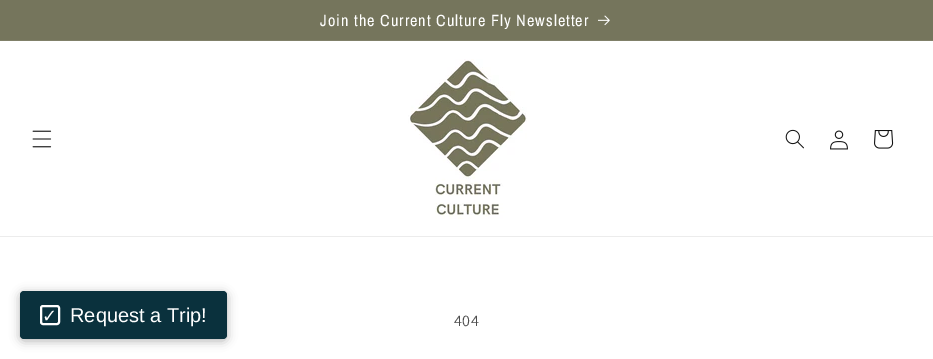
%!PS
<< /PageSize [933 359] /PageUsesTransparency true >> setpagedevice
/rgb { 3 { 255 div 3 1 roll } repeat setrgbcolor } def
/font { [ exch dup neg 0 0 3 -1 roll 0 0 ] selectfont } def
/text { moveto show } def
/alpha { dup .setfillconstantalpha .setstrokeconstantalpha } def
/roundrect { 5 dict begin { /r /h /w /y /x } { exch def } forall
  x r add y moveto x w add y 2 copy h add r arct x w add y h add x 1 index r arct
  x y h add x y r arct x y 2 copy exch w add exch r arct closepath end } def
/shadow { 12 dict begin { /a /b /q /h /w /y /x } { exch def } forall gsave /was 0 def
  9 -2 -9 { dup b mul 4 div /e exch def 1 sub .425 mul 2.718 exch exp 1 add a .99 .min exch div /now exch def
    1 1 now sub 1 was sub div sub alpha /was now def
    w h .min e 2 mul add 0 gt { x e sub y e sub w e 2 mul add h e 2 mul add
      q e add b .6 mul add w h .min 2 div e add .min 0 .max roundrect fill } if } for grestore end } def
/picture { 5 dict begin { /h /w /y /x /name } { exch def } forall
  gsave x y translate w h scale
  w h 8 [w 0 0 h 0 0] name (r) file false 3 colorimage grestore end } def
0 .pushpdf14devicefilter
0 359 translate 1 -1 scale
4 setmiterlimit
255 255 255 rgb
0 0 933 359 rectfill
117 117 92 rgb
0 0 933 40 rectfill
128 128 105 rgb
0 40 933 1 rectfill
(img_01.rgb) 598 15 12 11 picture
236 236 236 rgb
0 236 933 1 rectfill
(img_02.rgb) 32 130 20 18 picture
(img_03.rgb) 408 59 119 160 picture
(img_04.rgb) 785 129 19 20 picture
(img_05.rgb) 830 130 18 20 picture
(img_06.rgb) 874 130 20 19 picture
0 0 0 rgb
20 293 207 48 4 5 0.3 shadow
10 49 61 rgb
20 291 207 48 4 roundrect fill
255 255 255 rgb
2 setlinewidth
41 306 18 18 2 roundrect stroke
/ArchivoNarrow-Regular 16.25 font
320 26 moveto 1 0 (Join the Current Culture Fly Newsletter) ashow
/DejaVuSans-Regular 18 font
(✓) 42 322 text
/LiberationSans-Regular 20 font
(Request a Trip!) 70 322 text
/Assistant-Regular 16 font
77 77 77 rgb
454 326 moveto 0.5 0 (404) ashow
.poppdf14devicefilter showpage
